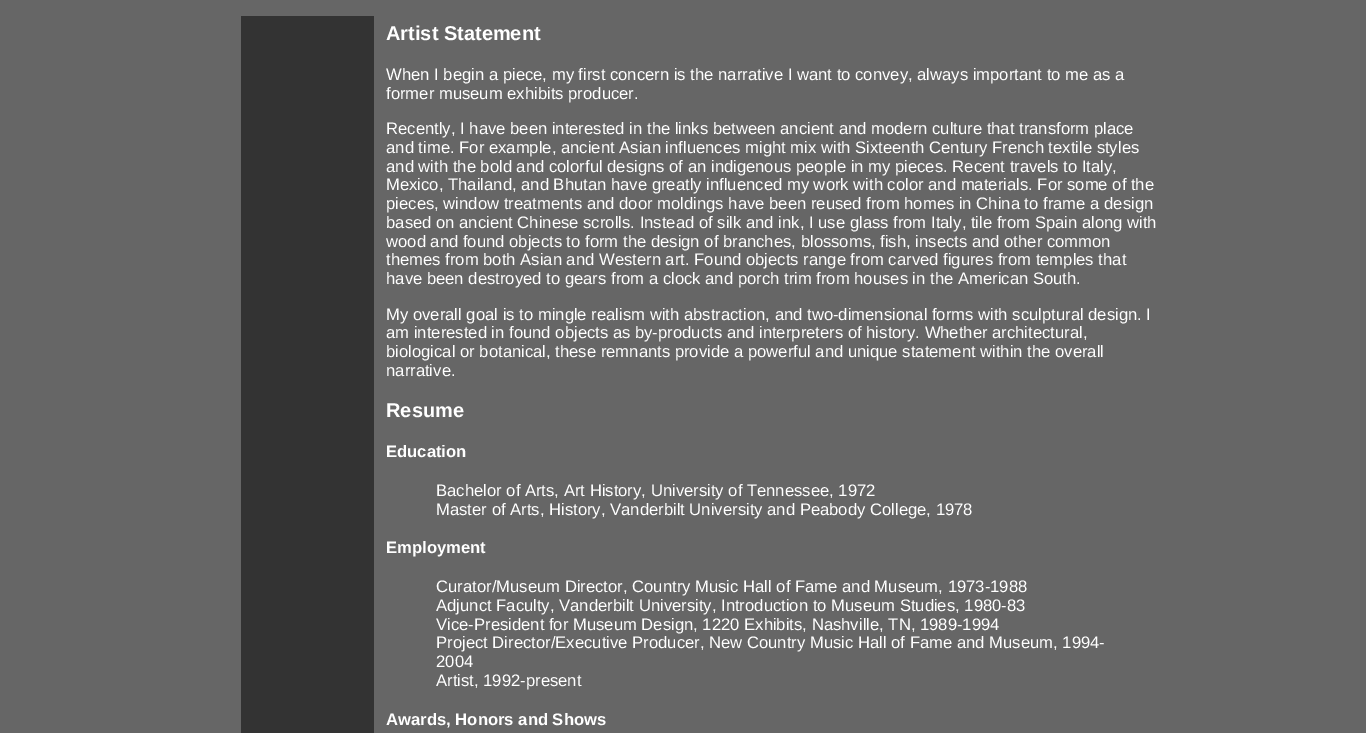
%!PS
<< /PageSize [1366 733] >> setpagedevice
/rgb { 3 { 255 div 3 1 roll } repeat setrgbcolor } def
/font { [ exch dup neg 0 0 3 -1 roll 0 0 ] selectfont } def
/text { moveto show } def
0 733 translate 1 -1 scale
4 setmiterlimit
102 102 102 rgb
0 0 1366 733 rectfill
51 51 51 rgb
241 16 133 717 rectfill
/LiberationSans-Bold 20 font
255 255 255 rgb
(Artist Statement) 386 40 text
/LiberationSans-Regular 16.65 font
(When I begin a piece, my first concern is the narrative I want to convey, always important to me as a) 386 80 text
(former museum exhibits producer.) 386 99 text
(Recently, I have been interested in the links between ancient and modern culture that transform place) 386 134 text
(and time. For example, ancient Asian influences might mix with Sixteenth Century French textile styles) 386 153 text
(and with the bold and colorful designs of an indigenous people in my pieces. Recent travels to Italy,) 386 172 text
(Mexico, Thailand, and Bhutan have greatly influenced my work with color and materials. For some of the) 386 190 text
(pieces, window treatments and door moldings have been reused from homes in China to frame a design) 386 209 text
(based on ancient Chinese scrolls. Instead of silk and ink, I use glass from Italy, tile from Spain along with) 386 228 text
(wood and found objects to form the design of branches, blossoms, fish, insects and other common) 386 247 text
(themes from both Asian and Western art. Found objects range from carved figures from temples that) 386 265 text
(have been destroyed to gears from a clock and porch trim from houses in the American South.) 386 284 text
(My overall goal is to mingle realism with abstraction, and two-dimensional forms with sculptural design. I) 386 320 text
(am interested in found objects as by-products and interpreters of history. Whether architectural,) 386 338 text
(biological or botanical, these remnants provide a powerful and unique statement within the overall) 386 357 text
(narrative.) 386 376 text
/LiberationSans-Bold 20 font
(Resume) 386 417 text
/LiberationSans-Bold 16.65 font
(Education) 386 457 text
/LiberationSans-Regular 16.65 font
(Bachelor of Arts, Art History, University of Tennessee, 1972) 436 496 text
(Master of Arts, History, Vanderbilt University and Peabody College, 1978) 436 515 text
/LiberationSans-Bold 16.65 font
(Employment) 386 553 text
/LiberationSans-Regular 16.65 font
(Curator/Museum Director, Country Music Hall of Fame and Museum, 1973-1988) 436 592 text
(Adjunct Faculty, Vanderbilt University, Introduction to Museum Studies, 1980-83) 436 611 text
(Vice-President for Museum Design, 1220 Exhibits, Nashville, TN, 1989-1994) 436 630 text
(Project Director/Executive Producer, New Country Music Hall of Fame and Museum, 1994-) 436 648 text
(2004) 436 667 text
(Artist, 1992-present) 436 686 text
/LiberationSans-Bold 16.65 font
(Awards, Honors and Shows) 386 725 text
showpage
